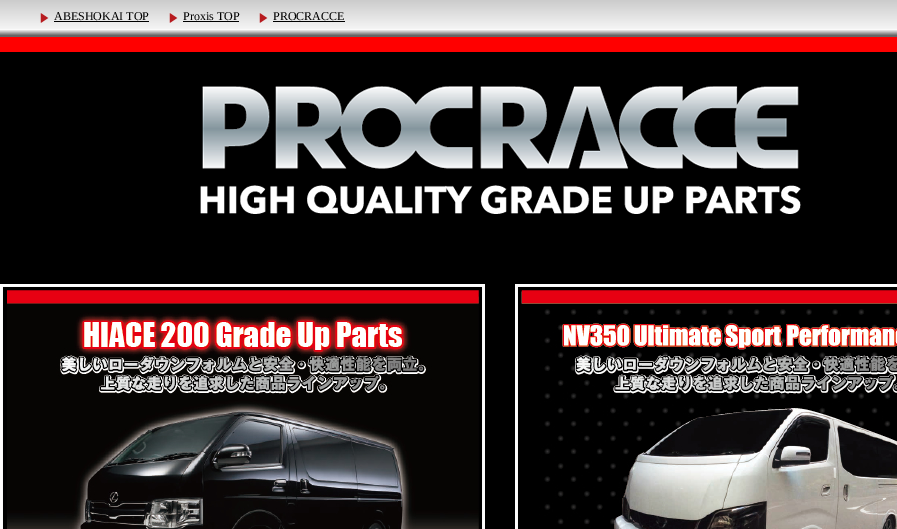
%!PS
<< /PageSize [897 529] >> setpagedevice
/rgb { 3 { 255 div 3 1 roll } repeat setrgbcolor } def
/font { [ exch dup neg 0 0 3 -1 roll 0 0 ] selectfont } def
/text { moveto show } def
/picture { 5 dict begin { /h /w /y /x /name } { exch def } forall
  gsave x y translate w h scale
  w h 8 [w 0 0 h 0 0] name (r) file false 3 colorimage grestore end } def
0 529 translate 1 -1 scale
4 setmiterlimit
0 0 0 rgb
0 0 897 529 rectfill
(img_01.rgb) 0 0 897 37 picture
(img_02.rgb) 40 13 9 10 picture
54 21 95 1 rectfill
(img_02.rgb) 169 13 9 10 picture
183 21 56 1 rectfill
(img_02.rgb) 259 13 9 10 picture
273 21 72 1 rectfill
255 0 0 rgb
0 37 897 15 rectfill
(img_03.rgb) 200 86 601 128 picture
(img_04.rgb) 0 284 485 245 picture
(img_05.rgb) 515 284 382 245 picture
/LiberationSerif-Regular 12 font
0 0 0 rgb
(ABESHOKAI TOP) 54 20 text
(Proxis TOP) 183 20 text
(PROCRACCE) 273 20 text
showpage
